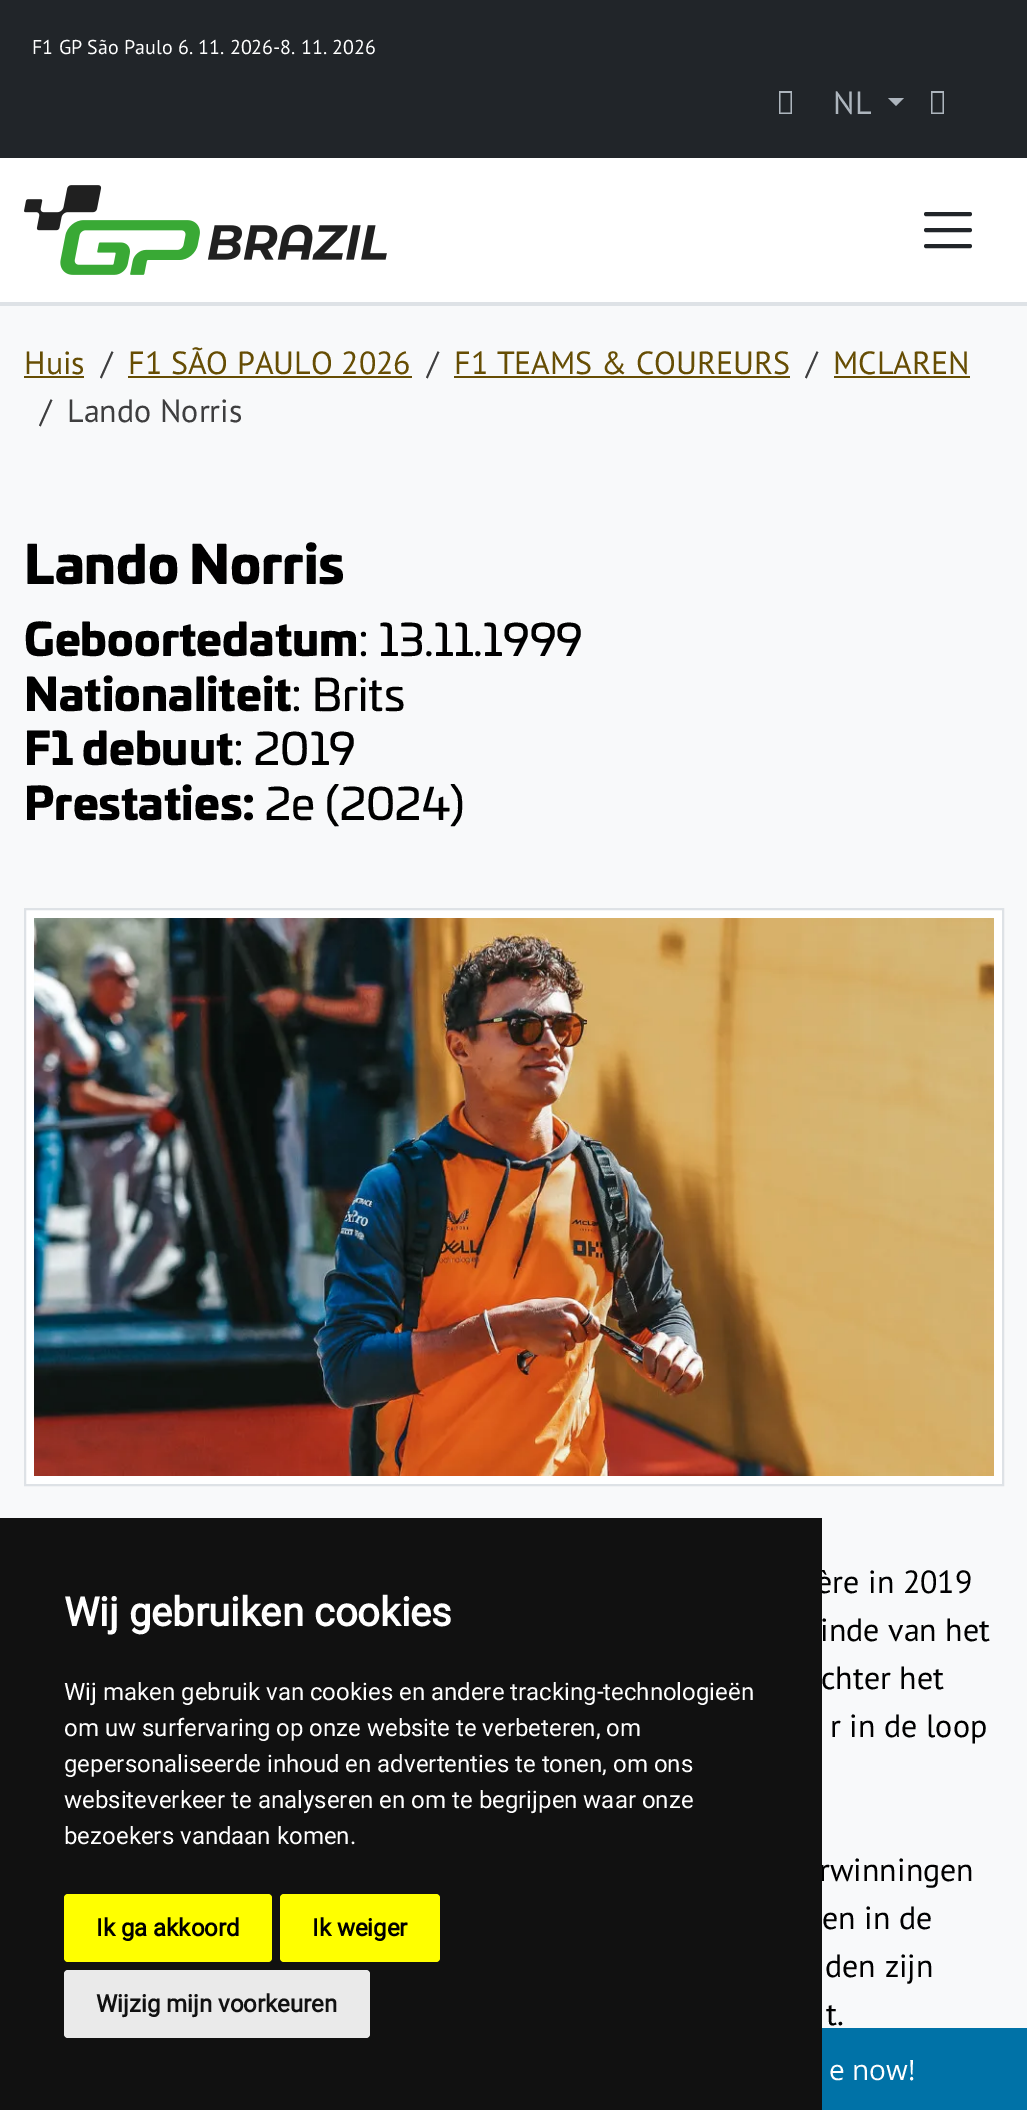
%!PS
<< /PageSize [1027 2110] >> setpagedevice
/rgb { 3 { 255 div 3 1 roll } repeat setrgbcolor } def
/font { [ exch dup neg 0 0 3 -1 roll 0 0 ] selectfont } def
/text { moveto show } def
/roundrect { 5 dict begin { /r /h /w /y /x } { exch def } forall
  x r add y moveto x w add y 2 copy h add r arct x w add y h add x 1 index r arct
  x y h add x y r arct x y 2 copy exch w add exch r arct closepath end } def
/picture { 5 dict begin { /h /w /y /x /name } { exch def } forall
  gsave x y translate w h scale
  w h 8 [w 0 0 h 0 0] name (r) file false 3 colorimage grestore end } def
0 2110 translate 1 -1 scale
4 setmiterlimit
255 255 255 rgb
0 0 1027 2110 rectfill
33 37 41 rgb
0 0 1027 158 rectfill
173 181 189 rgb
779 114 moveto 0 -23 rlineto 13 0 rlineto 0 23 rlineto closepath 780.5 112.5 moveto 10 0 rlineto 0 -19.5 rlineto -10 0 rlineto closepath fill
888 98 moveto 16 0 rlineto -8 8 rlineto closepath fill
931 114 moveto 0 -23 rlineto 13 0 rlineto 0 23 rlineto closepath 932.5 112.5 moveto 10 0 rlineto 0 -19.5 rlineto -10 0 rlineto closepath fill
(img_01.rgb) 24 185 363 90 picture
33 37 41 rgb
4 setlinewidth
1 setlinecap
926 214 moveto 44 0 rlineto 926 230 moveto 44 0 rlineto 926 246 moveto 44 0 rlineto stroke
248 249 250 rgb
0 306 1027 1722 rectfill
222 226 230 rgb
0 302 1027 4 rectfill
102 77 3 rgb
24 376 60 2 rectfill
128 376 284 2 rectfill
454 376 336 2 rectfill
834 376 136 2 rectfill
255 255 255 rgb
25 909 moveto 978 0 rlineto 0 576 rlineto -978 0 rlineto closepath gsave fill grestore
222 226 230 rgb
2 setlinewidth
0 setlinecap
stroke
(img_02.rgb) 34 918 960 558 picture
0 114 167 rgb
822 2028 205 82 rectfill
/PTSans-Regular 20 font
255 255 255 rgb
(F1 GP São Paulo 6. 11. 2026-8. 11. 2026) 32 54 text
/PTSans-Regular 32 font
173 181 189 rgb
(NL) 833 114 text
102 77 3 rgb
(Huis) 24 374 text
62 62 63 rgb
(/) 101 374 text
102 77 3 rgb
(F1 SÃO PAULO 2026) 128 374 text
62 62 63 rgb
(/) 427 374 text
102 77 3 rgb
(F1 TEAMS & COUREURS) 454 374 text
62 62 63 rgb
(/) 806 374 text
102 77 3 rgb
(MCLAREN) 833 374 text
62 62 63 rgb
(/) 40 422 text
(Lando Norris) 67 422 text
/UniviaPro-Black 51.5 font
0 0 0 rgb
(Lando Norris) 24 584 text
/UniviaPro-Black 44 font
(Geboortedatum) 24 656 text
/UniviaPro-Regular 44 font
(: 13.11.1999) 358 656 text
/UniviaPro-Black 44 font
(Nationaliteit) 24 711 text
/UniviaPro-Regular 44 font
(: Brits) 291 711 text
/UniviaPro-Black 44 font
(F1 debuut) 24 765 text
/UniviaPro-Regular 44 font
(: 2019) 233 765 text
/UniviaPro-Black 44 font
(Prestaties:) 24 820 text
/UniviaPro-Regular 44 font
(2e \(2024\)) 265 820 text
/PTSans-Regular 32 font
(ère in 2019) 816 1593 text
(inde van het) 820 1641 text
(chter het) 821 1689 text
(r in de loop) 830 1737 text
(rwinningen) 819 1881 text
(en in de) 822 1929 text
(den zijn) 825 1977 text
(t.) 826 2025 text
17 17 17 rgb
0 1518 822 592 rectfill
/Roboto-Bold 40 font
255 255 255 rgb
(Wij gebruiken cookies) 64 1626 text
/Roboto-Regular 24 font
(Wij maken gebruik van cookies en andere tracking-technologieën) 64 1700 text
(om uw surfervaring op onze website te verbeteren, om) 64 1736 text
(gepersonaliseerde inhoud en advertenties te tonen, om ons) 64 1772 text
(websiteverkeer te analyseren en om te begrijpen waar onze) 64 1808 text
(bezoekers vandaan komen.) 64 1844 text
255 255 0 rgb
64 1894 208 68 4 roundrect fill
/Roboto-Bold 24 font
0 0 0 rgb
(Ik ga akkoord) 96 1936 text
255 255 0 rgb
280 1894 160 68 4 roundrect fill
0 0 0 rgb
(Ik weiger) 312 1936 text
234 234 234 rgb
64 1970 306 68 4 roundrect fill
17 17 17 rgb
(Wijzig mijn voorkeuren) 96 2012 text
/OpenSans-Regular 28 font
255 255 255 rgb
(e now!) 829 2080 text
showpage
